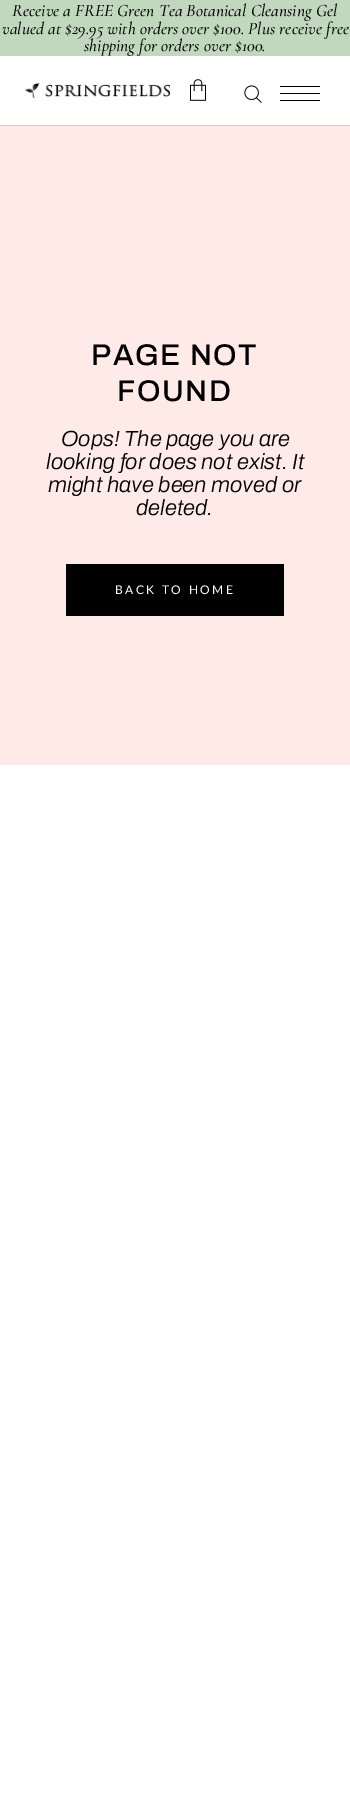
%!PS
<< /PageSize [350 1816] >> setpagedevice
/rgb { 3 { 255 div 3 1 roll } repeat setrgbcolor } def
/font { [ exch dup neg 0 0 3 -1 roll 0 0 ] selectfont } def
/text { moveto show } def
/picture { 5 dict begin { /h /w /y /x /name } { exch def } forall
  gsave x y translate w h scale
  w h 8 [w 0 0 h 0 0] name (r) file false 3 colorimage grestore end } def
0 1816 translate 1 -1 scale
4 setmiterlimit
255 255 255 rgb
0 0 350 1816 rectfill
193 215 190 rgb
0 0 350 56 rectfill
203 203 203 rgb
0 125 350 1 rectfill
(img_01.rgb) 25 83 145 15 picture
(img_02.rgb) 190 79 16 22 picture
(img_03.rgb) 244 85 18 18 picture
0 0 0 rgb
280 86 40 1 rectfill
280 93 40 1 rectfill
280 100 40 1 rectfill
254 234 231 rgb
0 126 350 639 rectfill
0 0 0 rgb
66 564 218 52 rectfill
/Cormorant-MediumItalic 17.6 font
(Receive a FREE Green Tea Botanical Cleansing Gel) 12 16 text
(valued at $29.95 with orders over $100. Plus receive free) 2 34 text
(shipping for orders over $100.) 84 51 text
/Archivo-Medium 30 font
91 365 moveto 1.5 0 (PAGE NOT) ashow
117 401 moveto 1.5 0 (FOUND) ashow
/Archivo-LightItalic 22 font
(Oops! The page you are) 61 446 text
(looking for does not exist. It) 46 469 text
(might have been moved or) 48 492 text
(deleted.) 136 515 text
/Lato-Regular 12 font
255 255 255 rgb
115 594 moveto 2.4 0 (BACK TO HOME) ashow
showpage
